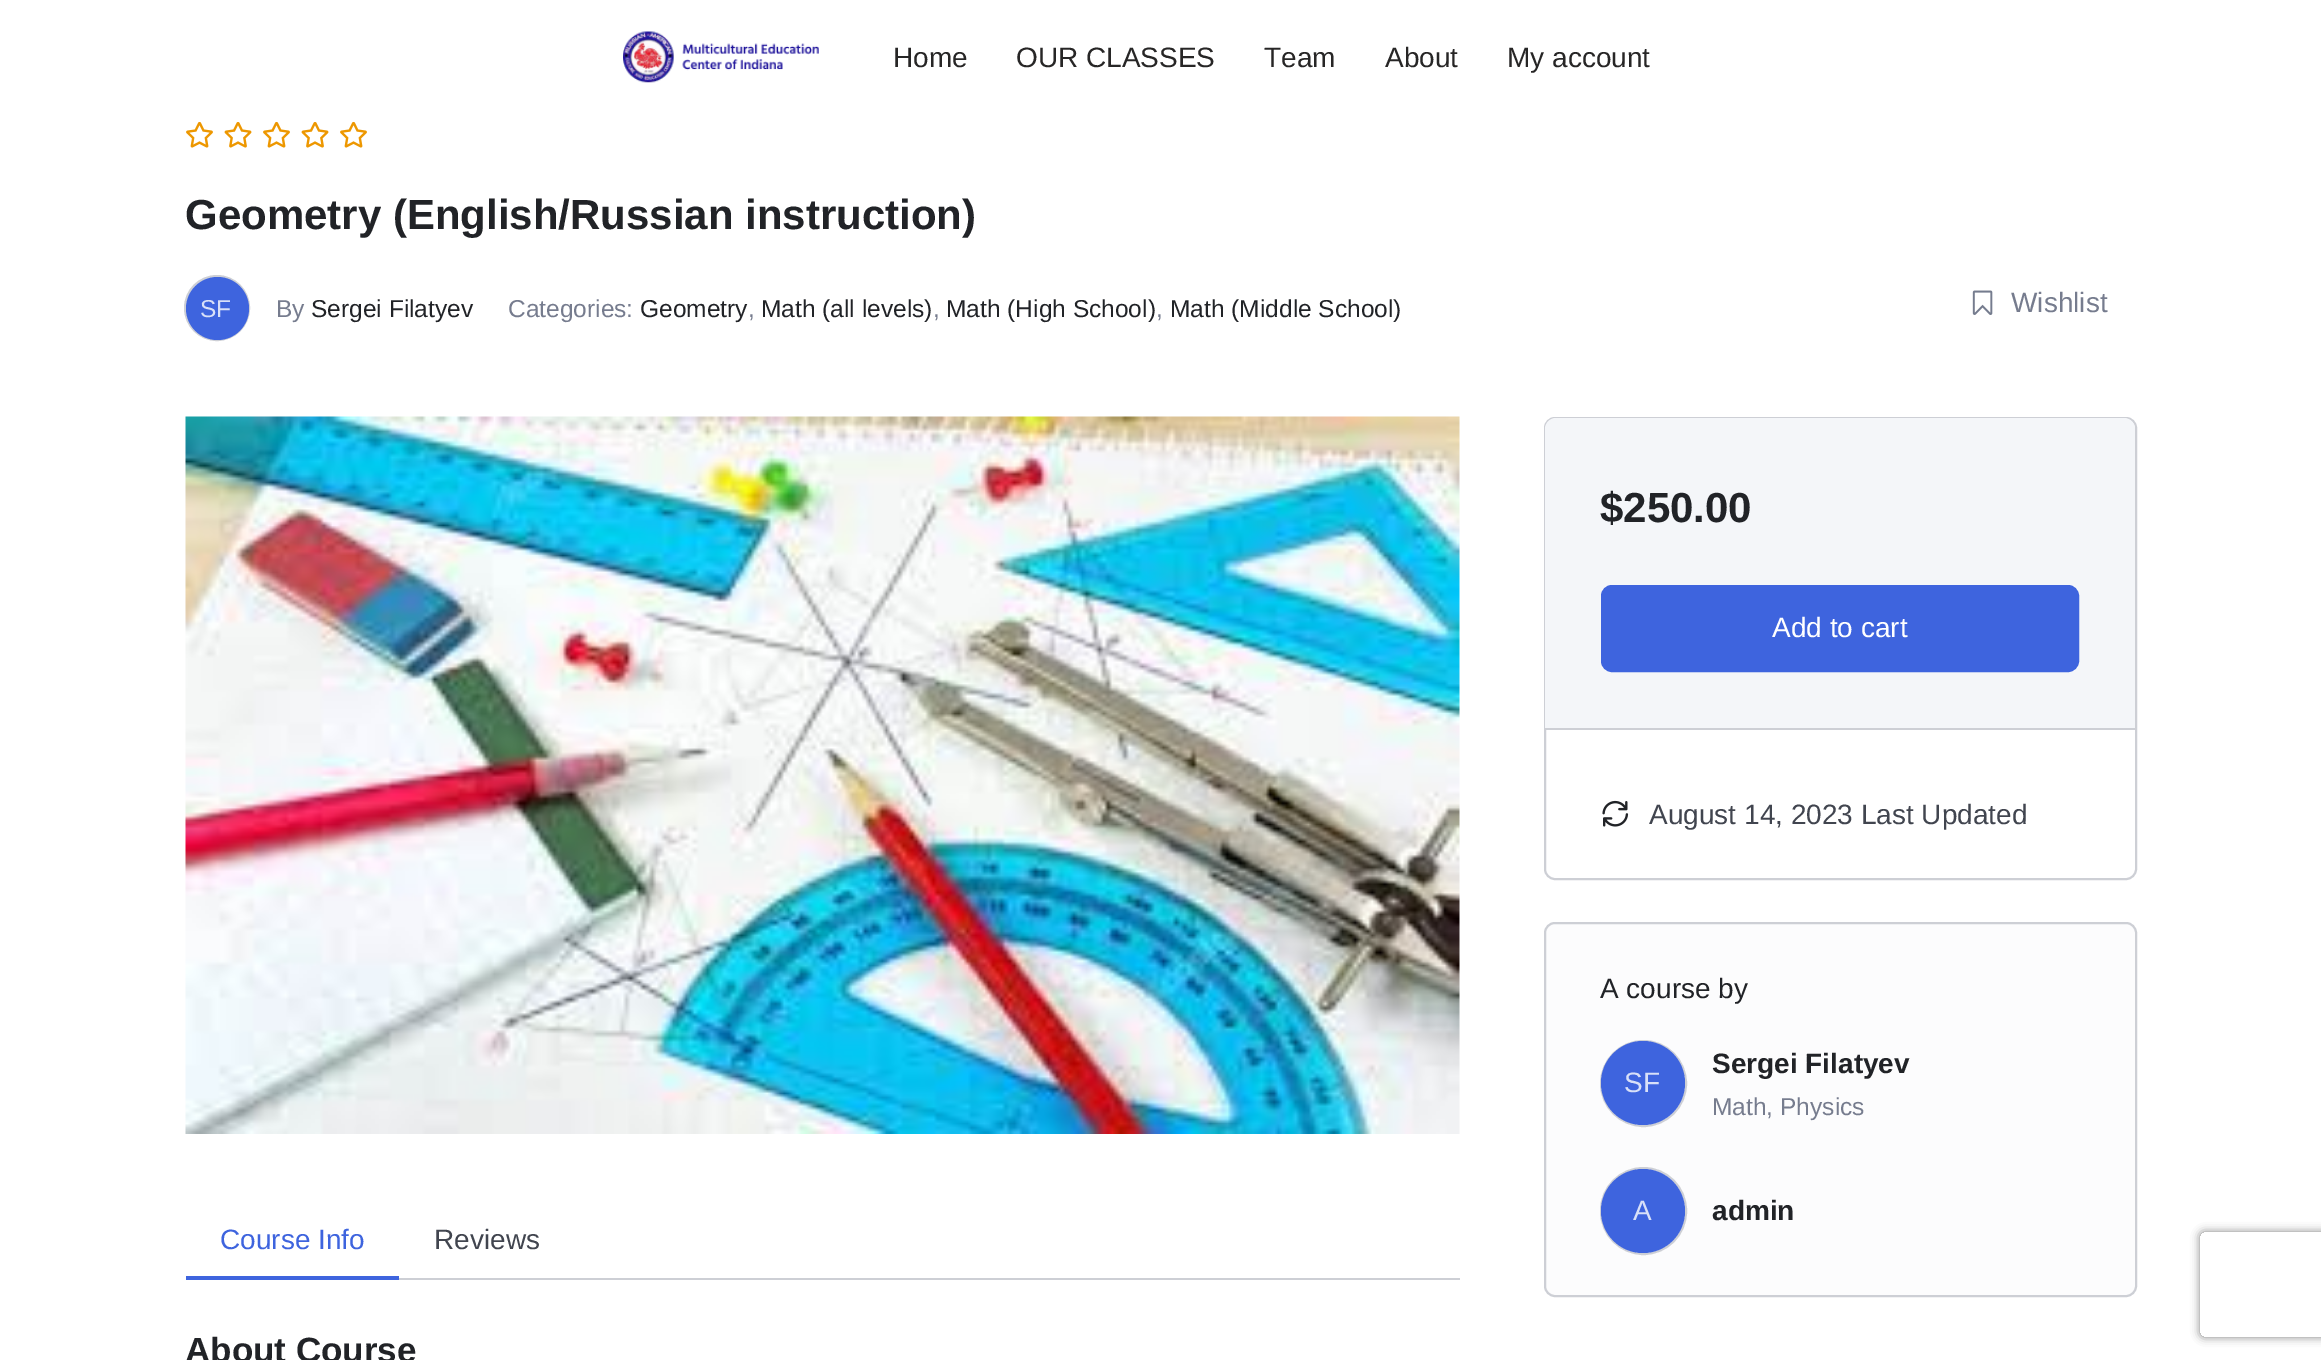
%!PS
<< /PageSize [2321 1360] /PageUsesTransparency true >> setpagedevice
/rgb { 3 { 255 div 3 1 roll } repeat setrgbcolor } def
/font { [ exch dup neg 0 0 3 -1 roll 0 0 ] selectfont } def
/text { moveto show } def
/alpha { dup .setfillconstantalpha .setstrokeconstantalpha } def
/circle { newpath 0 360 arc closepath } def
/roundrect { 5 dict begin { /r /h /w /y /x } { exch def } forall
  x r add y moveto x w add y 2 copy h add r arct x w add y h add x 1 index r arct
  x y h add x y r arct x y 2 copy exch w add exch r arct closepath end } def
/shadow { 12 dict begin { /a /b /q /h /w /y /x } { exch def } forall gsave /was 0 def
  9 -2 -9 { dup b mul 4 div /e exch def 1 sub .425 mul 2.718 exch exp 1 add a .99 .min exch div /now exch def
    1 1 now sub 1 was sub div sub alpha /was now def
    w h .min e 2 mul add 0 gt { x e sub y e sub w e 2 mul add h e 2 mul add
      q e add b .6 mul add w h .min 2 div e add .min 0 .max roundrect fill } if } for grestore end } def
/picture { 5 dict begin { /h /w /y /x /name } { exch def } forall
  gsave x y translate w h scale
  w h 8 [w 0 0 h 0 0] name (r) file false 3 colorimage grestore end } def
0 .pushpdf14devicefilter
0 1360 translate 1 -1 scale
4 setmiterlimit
255 255 255 rgb
0 0 2321 1360 rectfill
(img_01.rgb) 623 31 196 52 picture
(img_02.rgb) 186 121 27 27 picture
(img_03.rgb) 224 122 28 26 picture
(img_02.rgb) 263 121 27 27 picture
(img_03.rgb) 301 122 28 26 picture
(img_02.rgb) 340 121 27 27 picture
205 207 213 rgb
2 setlinewidth
217 308 32 circle stroke
62 100 222 rgb
217.5 308.5 31.5 circle fill
(img_04.rgb) 1972 290 21 25 picture
205 207 213 rgb
1545 418 591 461 10 roundrect stroke
244 246 249 rgb
1556 418 moveto 568 0 rlineto 6 0 11 5 11 11 rcurveto 0 299 rlineto -590 0 rlineto 0 -299 rlineto 0 -6 5 -11 11 -11 rcurveto closepath fill
62 100 222 rgb
1602 586 476 85 10 roundrect gsave fill grestore
stroke
205 207 213 rgb
1545 728 590 2 rectfill
(img_05.rgb) 1602 800 27 27 picture
252 252 253 rgb
1545 923 591 373 10 roundrect gsave fill grestore
205 207 213 rgb
stroke
1643.5 1083.5 42.5 circle stroke
62 100 222 rgb
1643 1083 42 circle fill
205 207 213 rgb
1601 1168 85 86 42.5 roundrect stroke
62 100 222 rgb
1643 1211 42 circle fill
(img_06.rgb) 185 416 1275 718 picture
205 207 213 rgb
399 1278 1061 2 rectfill
62 100 222 rgb
186 1276 213 4 rectfill
gsave
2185 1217 moveto 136 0 rlineto 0 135 rlineto -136 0 rlineto closepath 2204 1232 moveto 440 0 rlineto 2 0 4 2 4 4 rcurveto 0 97 rlineto 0 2 -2 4 -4 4 rcurveto -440 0 rlineto -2 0 -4 -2 -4 -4 rcurveto 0 -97 rlineto 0 -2 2 -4 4 -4 rcurveto closepath eoclip newpath
128 128 128 rgb
2200 1232 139 105 4 4.5 1 shadow
grestore
/LiberationSans-Regular 28 font
39 38 38 rgb
(Home) 893 67 text
(OUR CLASSES) 1016 67 text
(Team) 1264 67 text
(About) 1385 67 text
(My account) 1507 67 text
/LiberationSans-Bold 42 font
33 35 39 rgb
(Geometry \(English/Russian instruction\)) 185 229 text
/LiberationSans-Regular 24.5 font
216 224 248 rgb
(SF) 200 317 text
118 124 142 rgb
(By) 276 317 text
33 35 39 rgb
(Sergei Filatyev) 311 317 text
118 124 142 rgb
(Categories:) 508 317 text
33 35 39 rgb
(Geometry) 640 317 text
118 124 142 rgb
(,) 748 317 text
33 35 39 rgb
(Math \(all levels\)) 761 317 text
118 124 142 rgb
(,) 933 317 text
33 35 39 rgb
(Math \(High School\)) 946 317 text
118 124 142 rgb
(,) 1156 317 text
33 35 39 rgb
(Math \(Middle School\)) 1170 317 text
/LiberationSans-Regular 28 font
118 124 142 rgb
(Wishlist) 2011 312 text
/LiberationSans-Bold 42 font
33 35 39 rgb
($250.00) 1600 522 text
/LiberationSans-Regular 28 font
255 255 255 rgb
(Add to cart) 1772 637 text
65 69 79 rgb
(August 14, 2023 Last Updated) 1649 824 text
33 35 39 rgb
(A course by) 1600 998 text
216 224 248 rgb
(SF) 1624 1092 text
/LiberationSans-Bold 28 font
33 35 39 rgb
(Sergei Filatyev) 1712 1073 text
/LiberationSans-Regular 24.5 font
118 124 142 rgb
(Math, Physics) 1712 1115 text
/LiberationSans-Regular 28 font
216 224 248 rgb
(A) 1633 1220 text
/LiberationSans-Bold 28 font
33 35 39 rgb
(admin) 1712 1220 text
/LiberationSans-Regular 28 font
62 100 222 rgb
(Course Info) 220 1249 text
65 69 79 rgb
(Reviews) 434 1249 text
/LiberationSans-Bold 35 font
33 35 39 rgb
(About Course) 185 1362 text
.poppdf14devicefilter showpage
